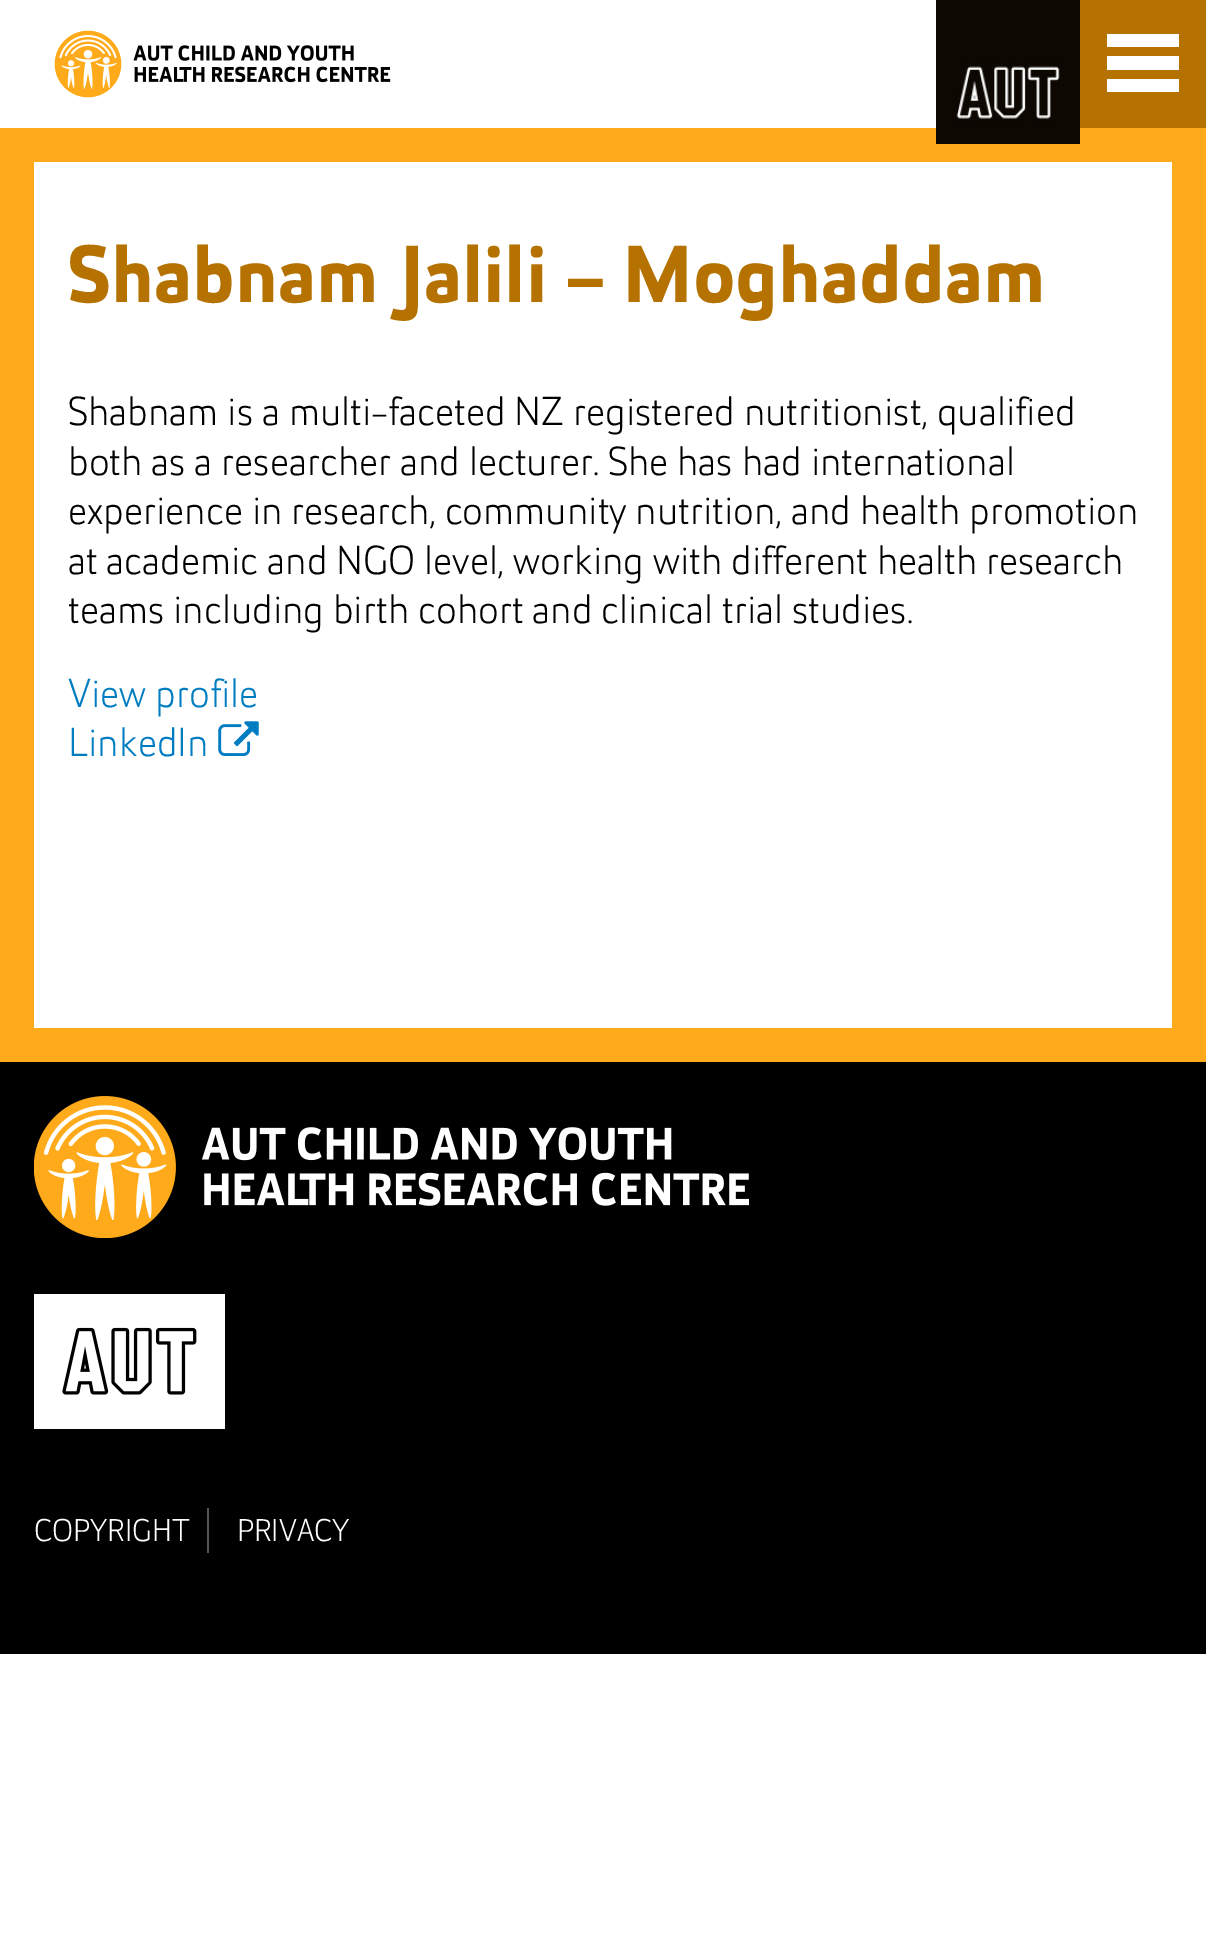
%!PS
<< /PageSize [1206 1936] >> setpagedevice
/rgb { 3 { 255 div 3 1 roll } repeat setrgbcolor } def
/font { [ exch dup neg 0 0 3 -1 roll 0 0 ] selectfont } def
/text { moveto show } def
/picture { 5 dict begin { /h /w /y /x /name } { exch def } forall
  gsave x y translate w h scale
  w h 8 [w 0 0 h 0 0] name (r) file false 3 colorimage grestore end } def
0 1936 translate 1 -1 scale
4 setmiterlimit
255 255 255 rgb
0 0 1206 1936 rectfill
(img_01.rgb) 54 30 337 68 picture
255 170 26 rgb
0 128 1206 934 rectfill
(img_02.rgb) 936 0 144 144 picture
181 114 0 rgb
1080 0 126 128 rectfill
255 255 255 rgb
1107 34 72 13 rectfill
1107 56 72 14 rectfill
1107 79 72 13 rectfill
34 162 1138 866 rectfill
(img_03.rgb) 218 721 41 35 picture
0 0 0 rgb
0 1062 1206 592 rectfill
(img_04.rgb) 34 1096 715 142 picture
(img_05.rgb) 34 1294 191 135 picture
84 84 84 rgb
207 1508 2 45 rectfill
/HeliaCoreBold-Bold 81 font
181 114 0 rgb
(Shabnam Jalili – Moghaddam) 68 302 text
/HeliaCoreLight-Light 40.5 font
0 0 0 rgb
(Shabnam is a multi-faceted NZ registered nutritionist, qualified) 68 425 text
(both as a researcher and lecturer. She has had international) 68 475 text
(experience in research, community nutrition, and health promotion) 68 524 text
(at academic and NGO level, working with different health research) 68 574 text
(teams including birth cohort and clinical trial studies.) 68 623 text
0 124 193 rgb
(View profile) 68 707 text
(LinkedIn) 68 756 text
/HeliaCoreLight-Light 31.5 font
255 255 255 rgb
(COPYRIGHT) 34 1541 text
(PRIVACY) 237 1541 text
showpage
